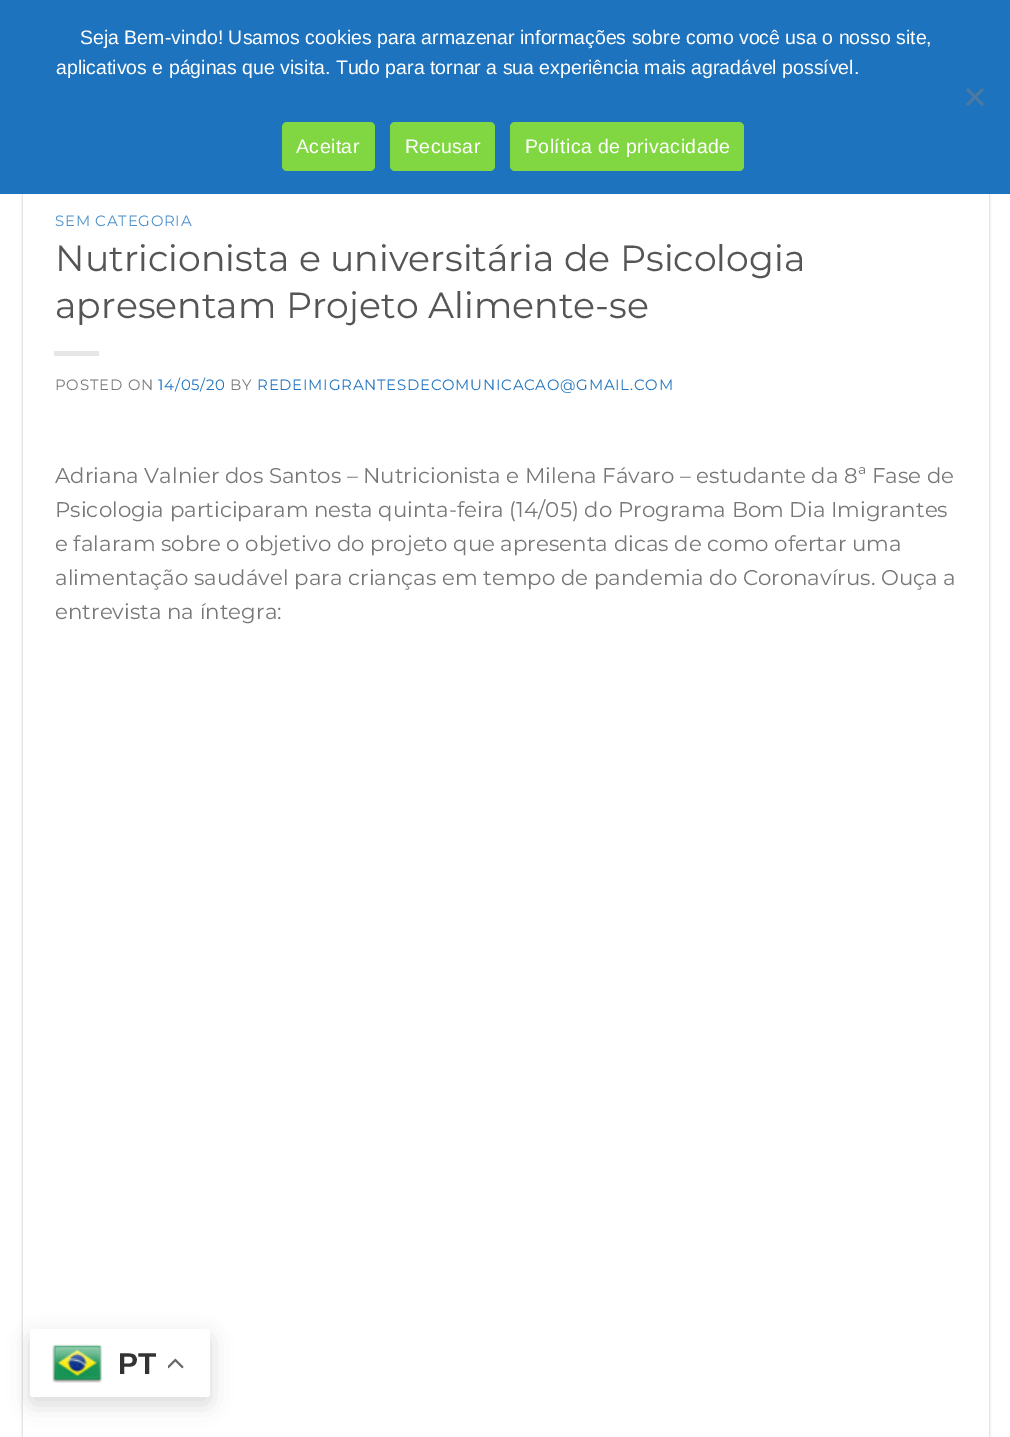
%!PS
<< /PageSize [1010 1437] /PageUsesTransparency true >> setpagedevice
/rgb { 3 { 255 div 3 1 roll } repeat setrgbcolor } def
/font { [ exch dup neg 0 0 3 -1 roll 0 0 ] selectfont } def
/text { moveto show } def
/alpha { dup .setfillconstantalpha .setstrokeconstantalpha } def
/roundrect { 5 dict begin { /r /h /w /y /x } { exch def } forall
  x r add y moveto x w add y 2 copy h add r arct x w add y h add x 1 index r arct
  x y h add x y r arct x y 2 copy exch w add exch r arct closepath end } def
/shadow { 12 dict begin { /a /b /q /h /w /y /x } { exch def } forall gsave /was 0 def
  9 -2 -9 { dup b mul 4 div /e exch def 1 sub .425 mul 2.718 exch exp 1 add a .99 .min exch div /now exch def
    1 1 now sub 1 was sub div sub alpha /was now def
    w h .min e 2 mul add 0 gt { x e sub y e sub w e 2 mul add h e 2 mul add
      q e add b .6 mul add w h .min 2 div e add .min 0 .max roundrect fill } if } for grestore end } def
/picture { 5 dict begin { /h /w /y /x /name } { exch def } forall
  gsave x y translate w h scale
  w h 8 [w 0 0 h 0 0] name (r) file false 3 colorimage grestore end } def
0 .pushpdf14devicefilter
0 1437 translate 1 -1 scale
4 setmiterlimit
255 255 255 rgb
0 0 1010 1437 rectfill
0 0 0 rgb
23 182 966 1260 0 1.5 0.24 shadow
30 115 190 rgb
0 0 1010 194 rectfill
79 122 159 rgb
982 88 moveto 2 2 rlineto -16 16 rlineto -2 -2 rlineto closepath fill
966 90 moveto 2 -2 rlineto 16 16 rlineto -2 2 rlineto closepath fill
129 215 66 rgb
282 122 93 49 5 roundrect fill
390 122 105 49 5 roundrect fill
510 122 234 49 5 roundrect fill
255 255 255 rgb
23 194 966 1243 rectfill
230 230 230 rgb
54 351 45 5 rectfill
0 0 0 rgb
30 1337 180 67 3 11 0.15 shadow
255 255 255 rgb
30 1329 180 68 3 roundrect fill
(img_01.rgb) 52 1344 50 39 picture
(img_02.rgb) 168 1358 16 11 picture
/LiberationSans-Regular 19.5 font
(Seja Bem-vindo! Usamos cookies para armazenar informações sobre como você usa o nosso site,) 80 44 text
(aplicativos e páginas que visita. Tudo para tornar a sua experiência mais agradável possível.) 56 74 text
296 153 moveto 0.4 0 (Aceitar) ashow
405 153 moveto 0.4 0 (Recusar) ashow
525 153 moveto 0.4 0 (Política de privacidade) ashow
/Montserrat-Regular 14.95 font
75 143 203 rgb
55 226 moveto 0.75 0 (SEM CATEGORIA) ashow
/Montserrat-Regular 36.3 font
85 85 85 rgb
(Nutricionista e universitária de Psicologia) 55 271 text
(apresentam Projeto Alimente-se) 55 318 text
/Montserrat-Regular 14.95 font
119 119 119 rgb
55 390 moveto 0.75 0 (POSTED ON) ashow
30 115 190 rgb
158 390 moveto 0.75 0 (14/05/20) ashow
119 119 119 rgb
230 390 moveto 0.75 0 (BY) ashow
30 115 190 rgb
257 390 moveto 0.75 0 (REDEIMIGRANTESDECOMUNICACAO@GMAIL.COM) ashow
/Montserrat-Regular 21.35 font
119 119 119 rgb
(Adriana Valnier dos Santos – Nutricionista e Milena Fávaro – estudante da 8ª Fase de) 55 483 text
(Psicologia participaram nesta quinta-feira \(14/05\) do Programa Bom Dia Imigrantes) 55 517 text
(e falaram sobre o objetivo do projeto que apresenta dicas de como ofertar uma) 55 551 text
(alimentação saudável para crianças em tempo de pandemia do Coronavírus. Ouça a) 55 585 text
(entrevista na íntegra:) 55 619 text
/LiberationSans-Bold 30 font
51 51 51 rgb
(PT) 118 1374 text
.poppdf14devicefilter showpage
